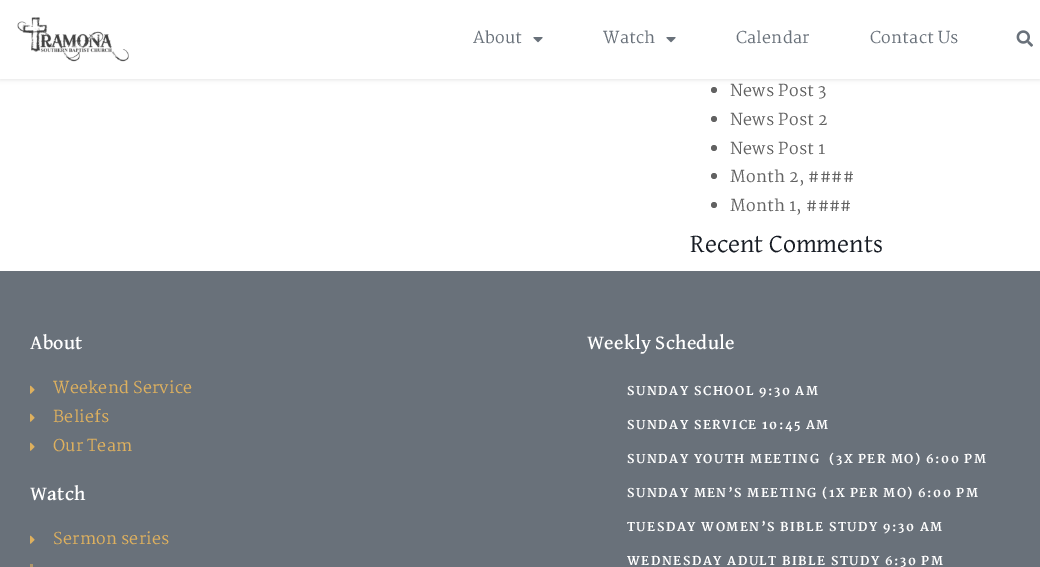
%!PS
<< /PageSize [1040 567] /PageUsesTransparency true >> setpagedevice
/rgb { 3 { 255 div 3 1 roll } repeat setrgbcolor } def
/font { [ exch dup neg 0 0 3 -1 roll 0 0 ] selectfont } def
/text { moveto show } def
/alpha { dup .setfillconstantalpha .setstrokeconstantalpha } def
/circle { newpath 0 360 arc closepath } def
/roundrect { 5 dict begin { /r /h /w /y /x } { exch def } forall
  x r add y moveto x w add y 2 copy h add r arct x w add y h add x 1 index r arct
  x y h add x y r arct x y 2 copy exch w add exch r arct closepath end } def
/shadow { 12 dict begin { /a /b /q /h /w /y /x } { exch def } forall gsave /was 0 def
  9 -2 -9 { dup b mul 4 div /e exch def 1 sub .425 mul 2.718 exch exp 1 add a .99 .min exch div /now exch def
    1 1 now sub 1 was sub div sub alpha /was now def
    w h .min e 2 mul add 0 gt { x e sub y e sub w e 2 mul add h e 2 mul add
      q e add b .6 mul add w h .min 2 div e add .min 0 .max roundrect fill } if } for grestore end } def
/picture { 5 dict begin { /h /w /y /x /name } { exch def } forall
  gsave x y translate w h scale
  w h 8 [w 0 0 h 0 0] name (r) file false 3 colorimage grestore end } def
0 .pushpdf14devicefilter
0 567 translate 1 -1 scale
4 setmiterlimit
255 255 255 rgb
0 0 1040 567 rectfill
0 0 0 rgb
0 1 1040 79 0 2 0.1 shadow
255 255 255 rgb
0 0 1040 79 rectfill
(img_01.rgb) 17 17 112 45 picture
(img_02.rgb) 533 37 10 6 picture
(img_02.rgb) 666 37 10 6 picture
(img_03.rgb) 1016 30 17 17 picture
98 98 98 rgb
714 90 3 circle fill
714 119 3 circle fill
714 148 3 circle fill
714 176 3 circle fill
714 205 3 circle fill
105 113 122 rgb
0 271 1040 296 rectfill
(img_04.rgb) 30 385 5 9 picture
(img_04.rgb) 30 413 5 9 picture
(img_04.rgb) 30 442 5 9 picture
(img_04.rgb) 30 535 5 9 picture
173 150 106 rgb
30 564 3 3 rectfill
/Martel-Regular 16 font
105 113 122 rgb
473 43 moveto 0.25 0 (About) ashow
603 43 moveto 0.25 0 (Watch) ashow
736 43 moveto 0.25 0 (Calendar) ashow
870 43 moveto 0.25 0 (Contact Us) ashow
98 98 98 rgb
730 96 moveto 0.25 0 (News Post 3) ashow
730 125 moveto 0.25 0 (News Post 2) ashow
730 154 moveto 0.25 0 (News Post 1) ashow
730 182 moveto 0.25 0 (Month 2, ####) ashow
730 211 moveto 0.25 0 (Month 1, ####) ashow
/DavidLibre-Regular 26 font
23 28 36 rgb
(Recent Comments) 690 252 text
/DavidLibre-Medium 20 font
255 255 255 rgb
30 349 moveto 0.25 0 (About) ashow
/Martel-Regular 16 font
222 176 94 rgb
53 393 moveto 0.25 0 (Weekend Service) ashow
53 422 moveto 0.25 0 (Beliefs) ashow
53 451 moveto 0.25 0 (Our Team) ashow
/DavidLibre-Medium 20 font
255 255 255 rgb
30 500 moveto 0.25 0 (Watch) ashow
/Martel-Regular 16 font
222 176 94 rgb
53 544 moveto 0.25 0 (Sermon series) ashow
/DavidLibre-Medium 20 font
255 255 255 rgb
587 349 moveto 0.25 0 (Weekly Schedule) ashow
/Martel-ExtraBold 12 font
627 395 moveto 1.5 0 (SUNDAY SCHOOL 9:30 AM) ashow
627 429 moveto 1.5 0 (SUNDAY SERVICE 10:45 AM) ashow
627 463 moveto 1.5 0 (SUNDAY YOUTH MEETING  \(3X PER MO\) 6:00 PM) ashow
627 497 moveto 1.5 0 (SUNDAY MEN’S MEETING \(1X PER MO\) 6:00 PM) ashow
627 531 moveto 1.5 0 (TUESDAY WOMEN’S BIBLE STUDY 9:30 AM) ashow
627 565 moveto 1.5 0 (WEDNESDAY ADULT BIBLE STUDY 6:30 PM) ashow
.poppdf14devicefilter showpage
